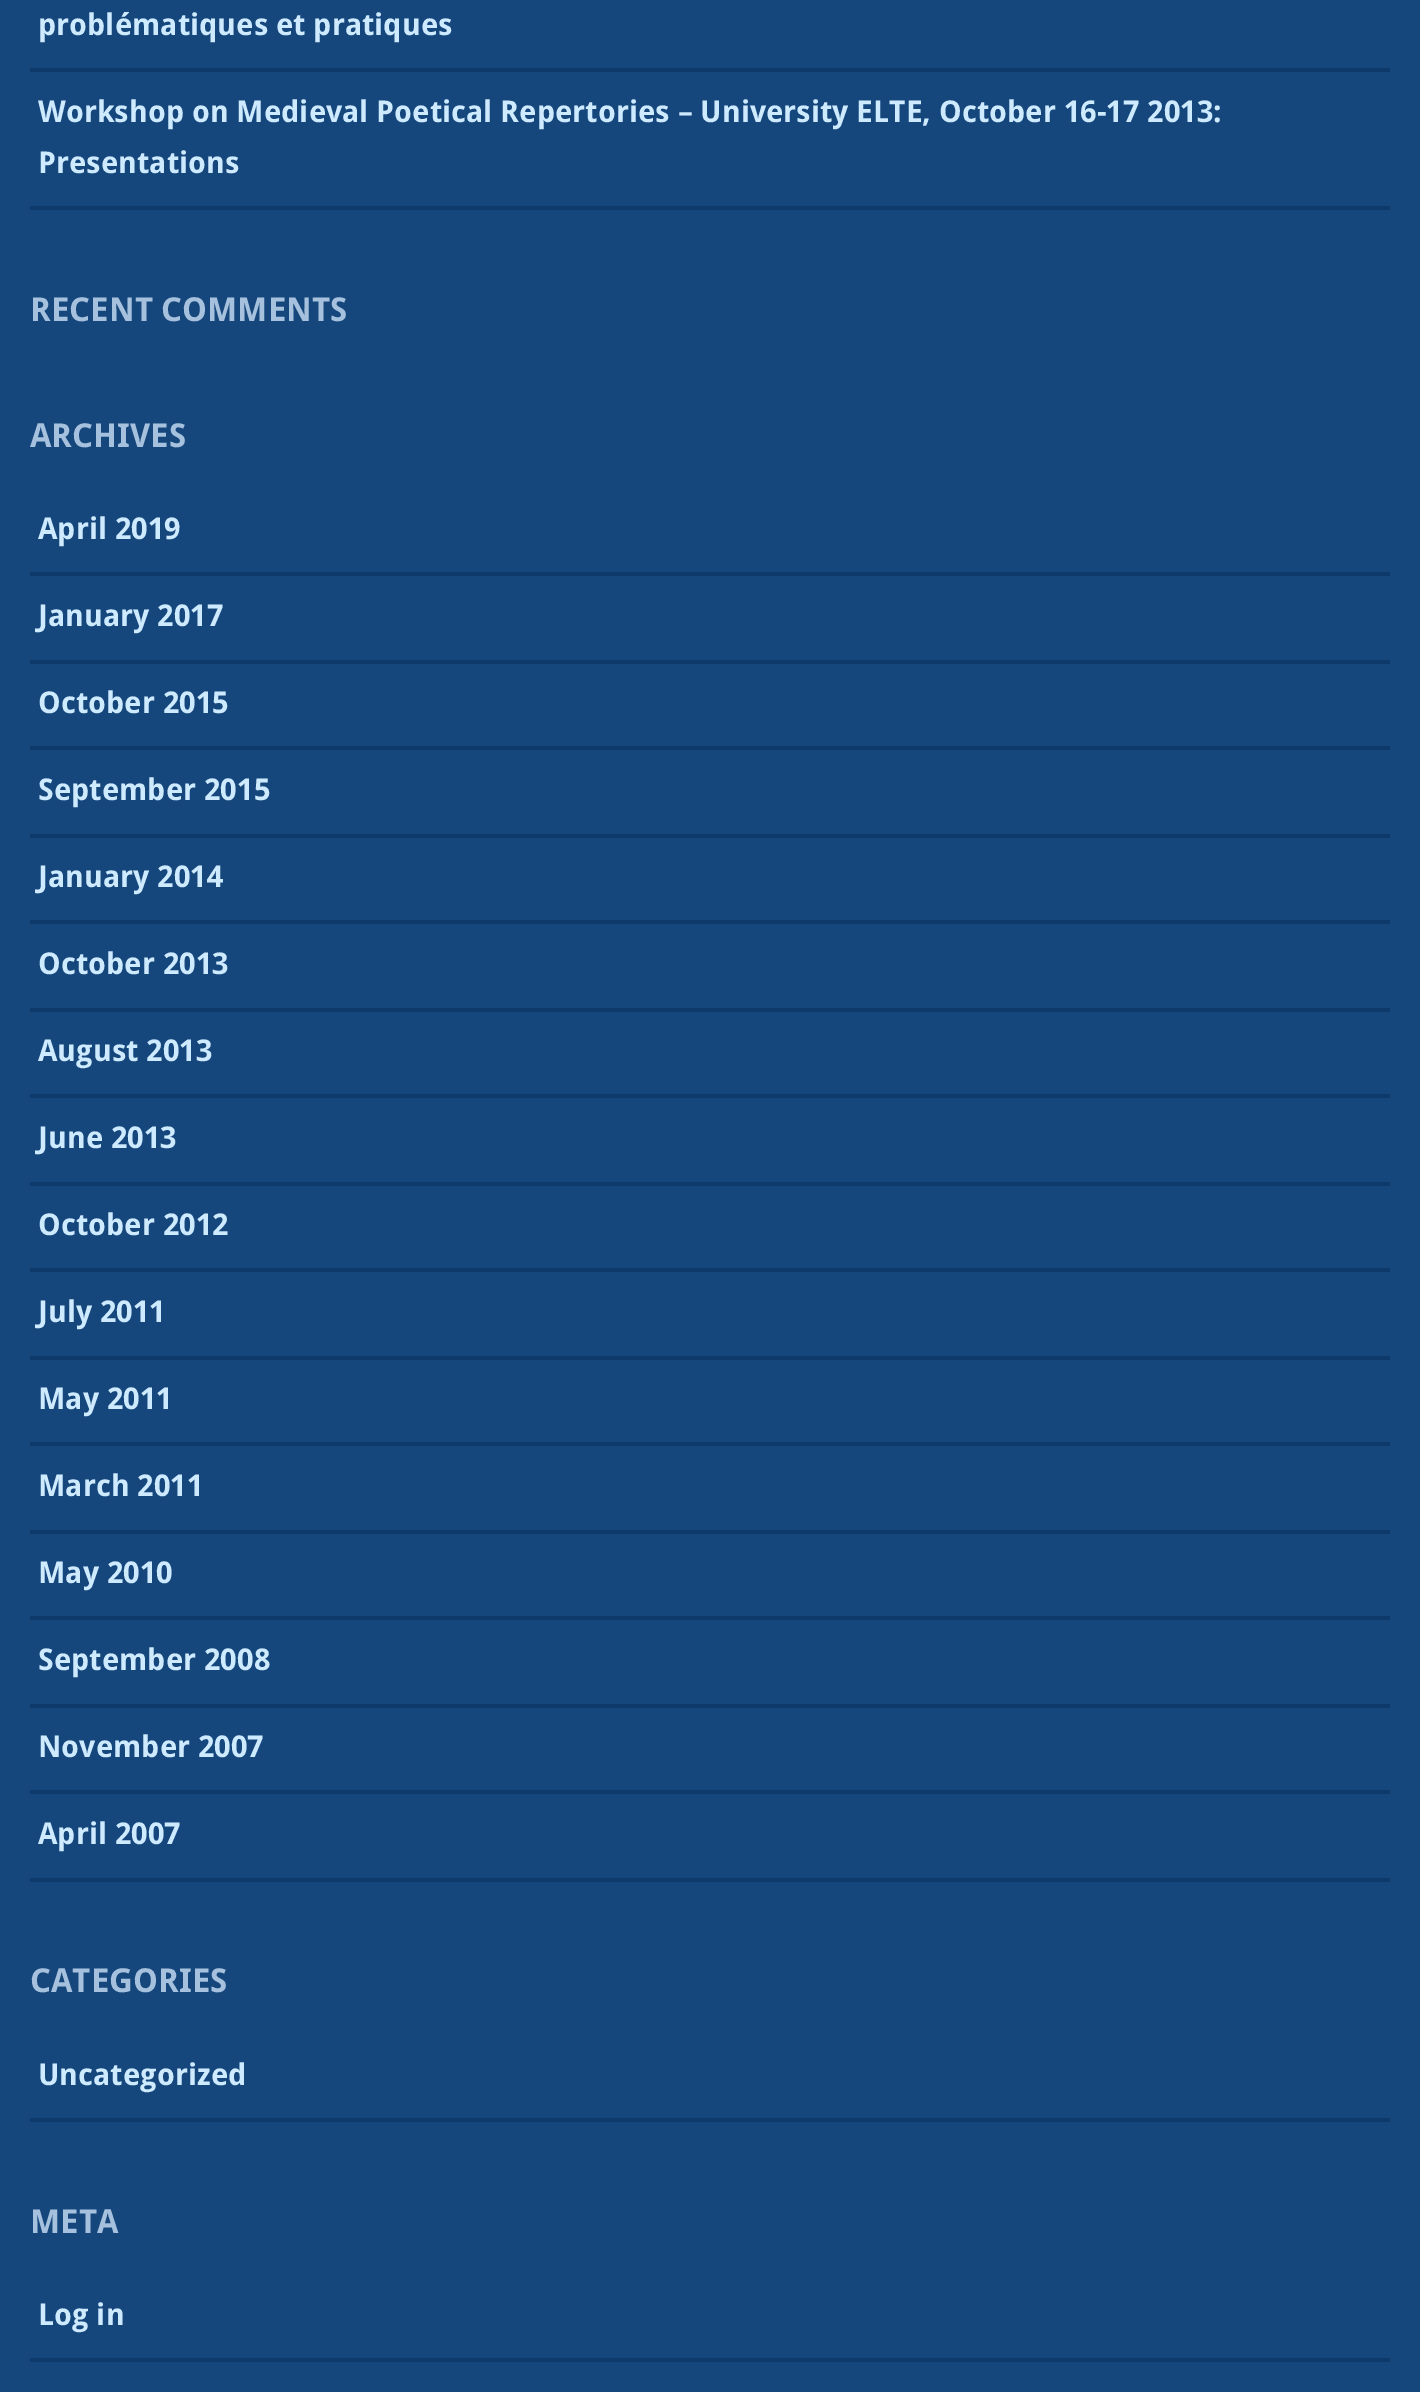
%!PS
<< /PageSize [1420 2392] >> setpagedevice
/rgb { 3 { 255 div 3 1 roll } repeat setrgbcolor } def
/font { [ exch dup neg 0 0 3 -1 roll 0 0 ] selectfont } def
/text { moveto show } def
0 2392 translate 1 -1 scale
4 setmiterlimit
21 70 124 rgb
0 0 1420 2392 rectfill
14 58 107 rgb
30 68 1360 4 rectfill
30 206 1360 4 rectfill
30 572 1360 4 rectfill
30 660 1360 4 rectfill
30 746 1360 4 rectfill
30 834 1360 4 rectfill
30 920 1360 4 rectfill
30 1008 1360 4 rectfill
30 1094 1360 4 rectfill
30 1182 1360 4 rectfill
30 1268 1360 4 rectfill
30 1356 1360 4 rectfill
30 1442 1360 4 rectfill
30 1530 1360 4 rectfill
30 1616 1360 4 rectfill
30 1704 1360 4 rectfill
30 1790 1360 4 rectfill
30 1878 1360 4 rectfill
30 2118 1360 4 rectfill
30 2358 1360 4 rectfill
/DroidSans-Bold 30 font
205 234 254 rgb
(problématiques et pratiques) 38 35 text
(Workshop on Medieval Poetical Repertories – University ELTE, October 16-17 2013:) 38 122 text
(Presentations) 38 173 text
/DroidSans-Bold 33 font
166 193 221 rgb
(RECENT COMMENTS) 30 321 text
(ARCHIVES) 30 447 text
/DroidSans-Bold 30 font
205 234 254 rgb
(April 2019) 38 539 text
(January 2017) 38 626 text
(October 2015) 38 713 text
(September 2015) 38 800 text
(January 2014) 38 887 text
(October 2013) 38 974 text
(August 2013) 38 1061 text
(June 2013) 38 1148 text
(October 2012) 38 1235 text
(July 2011) 38 1322 text
(May 2011) 38 1409 text
(March 2011) 38 1496 text
(May 2010) 38 1583 text
(September 2008) 38 1670 text
(November 2007) 38 1757 text
(April 2007) 38 1844 text
/DroidSans-Bold 33 font
166 193 221 rgb
(CATEGORIES) 30 1992 text
/DroidSans-Bold 30 font
205 234 254 rgb
(Uncategorized) 38 2085 text
/DroidSans-Bold 33 font
166 193 221 rgb
(META) 30 2233 text
/DroidSans-Bold 30 font
205 234 254 rgb
(Log in) 38 2325 text
showpage
